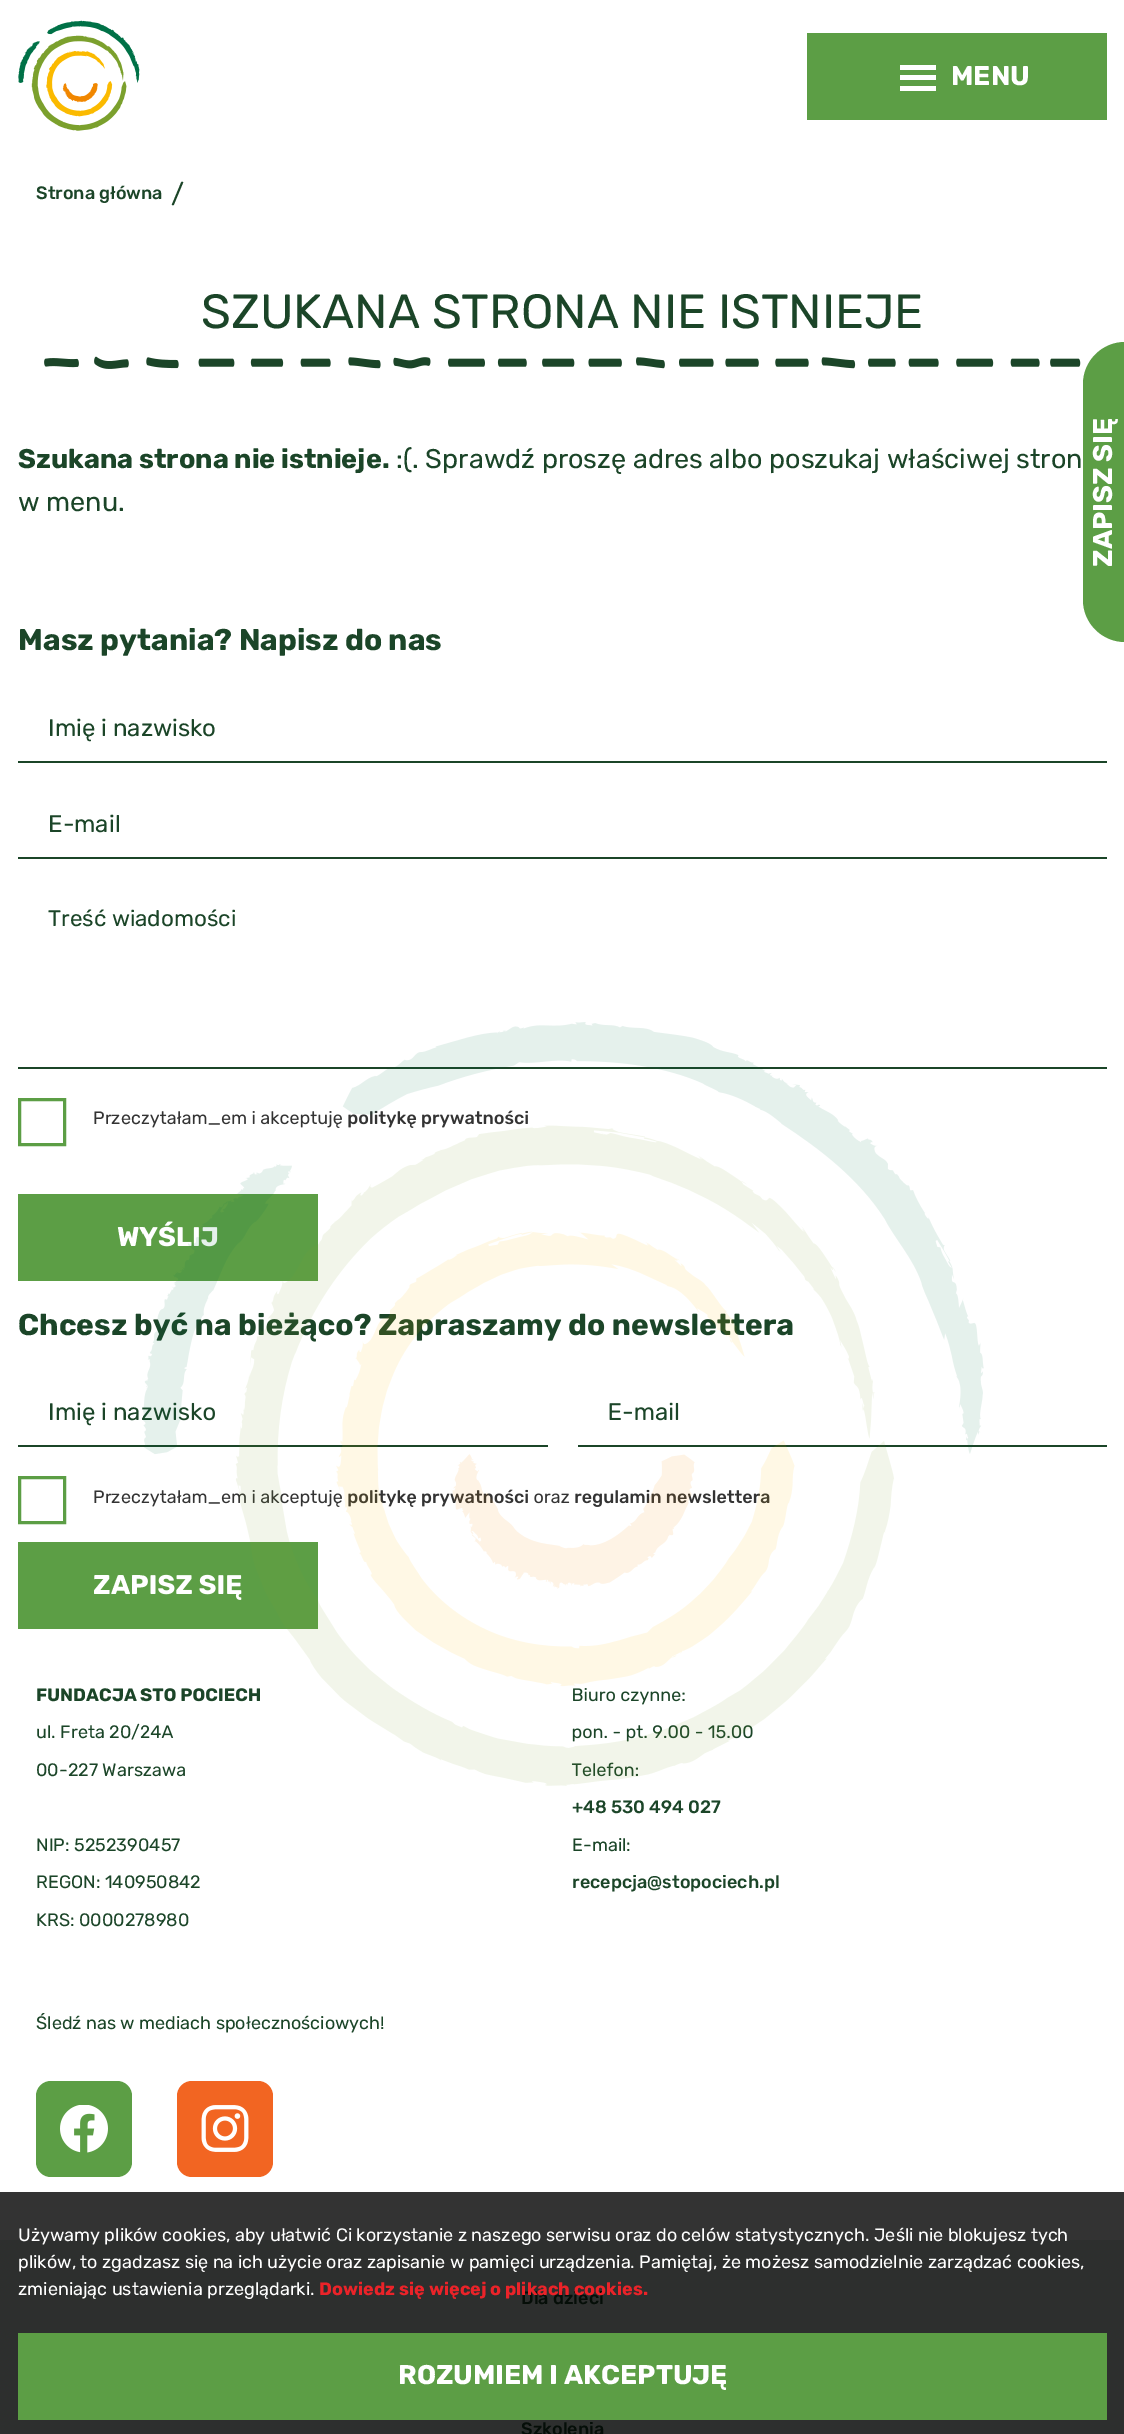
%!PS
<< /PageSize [1124 2434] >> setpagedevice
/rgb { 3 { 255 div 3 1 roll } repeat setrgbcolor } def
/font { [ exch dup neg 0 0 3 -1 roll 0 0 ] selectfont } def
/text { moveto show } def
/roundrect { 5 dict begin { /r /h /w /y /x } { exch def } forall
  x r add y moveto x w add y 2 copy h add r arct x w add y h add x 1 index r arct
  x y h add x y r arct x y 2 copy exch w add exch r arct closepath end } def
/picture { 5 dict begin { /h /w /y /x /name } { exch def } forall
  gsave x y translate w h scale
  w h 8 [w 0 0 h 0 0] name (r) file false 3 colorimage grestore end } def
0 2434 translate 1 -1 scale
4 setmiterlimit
255 255 255 rgb
0 0 1124 2434 rectfill
51 51 51 rgb
0 2192 1124 48 rectfill
(img_01.rgb) 18 20 122 111 picture
92 158 69 rgb
807 33 300 87 rectfill
255 255 255 rgb
900 65 36 5 rectfill
900 86 36 5 rectfill
900 75 36 5 rectfill
92 158 69 rgb
1083 600 moveto 0 -216 rlineto 0 -23 19 -42 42 -42 rcurveto 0 300 rlineto -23 0 -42 -19 -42 -42 rcurveto closepath fill
(img_02.rgb) 44 356 1037 13 picture
27 69 40 rgb
18 761 1089 2 rectfill
18 857 1089 2 rectfill
18 1067 1089 2 rectfill
92 158 69 rgb
3 setlinewidth
19.5 1099.5 45 45 rectstroke
18 1194 300 87 rectfill
27 69 40 rgb
18 1445 530 2 rectfill
578 1445 529 2 rectfill
92 158 69 rgb
19.5 1477.5 45 45 rectstroke
18 1542 300 87 rectfill
36 2081 96 96 15 roundrect fill
(img_04.rgb) 60 2105 48 48 picture
242 101 34 rgb
177 2081 96 96 15 roundrect fill
(img_05.rgb) 201 2105 48 47 picture
45 47 46 rgb
0 2240 1124 194 rectfill
92 158 69 rgb
18 2333 1089 87 rectfill
/Rubik-Bold 27 font
255 255 255 rgb
(MENU) 951 85 text
gsave 1112 567 translate -90 rotate 0 0 moveto (ZAPISZ SIĘ) show grestore
/Rubik-Medium 18 font
27 69 40 rgb
(Strona główna) 36 199 text
/Rubik-Regular 27 font
(/) 171 203 text
/Rubik-Regular 48 font
(SZUKANA STRONA NIE ISTNIEJE) 201 328 text
/Rubik-Bold 27 font
(Szukana strona nie istnieje.) 18 468 text
/Rubik-Regular 27 font
(:\(. Sprawdź proszę adres albo poszukaj właściwej stron) 396 468 text
(w menu.) 18 511 text
/Rubik-Bold 30 font
(Masz pytania? Napisz do nas) 18 650 text
/Rubik-Regular 24 font
(Imię i nazwisko) 48 736 text
(E-mail) 48 832 text
/Rubik-Regular 22.5 font
(Treść wiadomości) 48 926 text
/Rubik-Regular 18 font
51 51 51 rgb
(Przeczytałam_em i akceptuję) 93 1124 text
/Rubik-Medium 18 font
(politykę prywatności) 347 1124 text
/Rubik-Bold 27 font
255 255 255 rgb
(WYŚLIJ) 117 1246 text
/Rubik-Bold 30 font
27 69 40 rgb
(Chcesz być na bieżąco? Zapraszamy do newslettera) 18 1335 text
/Rubik-Regular 24 font
(Imię i nazwisko) 48 1420 text
(E-mail) 608 1420 text
/Rubik-Regular 18 font
51 51 51 rgb
(Przeczytałam_em i akceptuję) 93 1503 text
/Rubik-Medium 18 font
(politykę prywatności) 347 1503 text
/Rubik-Regular 18 font
(oraz) 533 1503 text
/Rubik-Medium 18 font
(regulamin newslettera) 574 1503 text
/Rubik-Bold 27 font
255 255 255 rgb
(ZAPISZ SIĘ) 93 1594 text
/Rubik-Bold 18 font
27 69 40 rgb
(FUNDACJA STO POCIECH) 36 1701 text
/Rubik-Regular 18 font
(ul. Freta 20/24A) 36 1738 text
(00-227 Warszawa) 36 1776 text
(NIP: 5252390457) 36 1851 text
(REGON: 140950842) 36 1888 text
(KRS: 0000278980) 36 1926 text
(Biuro czynne:) 572 1701 text
(pon. - pt. 9.00 - 15.00) 572 1738 text
(Telefon:) 572 1776 text
(img_03.rgb) 143 1022 841 764 picture
/Rubik-Medium 18 font
(+48 530 494 027) 572 1813 text
/Rubik-Regular 18 font
(E-mail:) 572 1851 text
/Rubik-Medium 18 font
(recepcja@stopociech.pl) 572 1888 text
/Rubik-Regular 18 font
(Śledź nas w mediach społecznościowych!) 36 2029 text
/Rubik-Medium 18 font
5 14 8 rgb
(Dla dzieci) 521 2304 text
(Szkolenia) 521 2435 text
/Rubik-Regular 18 font
255 255 255 rgb
(Używamy plików cookies, aby ułatwić Ci korzystanie z naszego serwisu oraz do celów statystycznych. Jeśli nie blokujesz tych) 18 2241 text
(plików, to zgadzasz się na ich użycie oraz zapisanie w pamięci urządzenia. Pamiętaj, że możesz samodzielnie zarządzać cookies,) 18 2268 text
(zmieniając ustawienia przeglądarki.) 18 2295 text
/Rubik-Bold 18 font
235 35 41 rgb
(Dowiedz się więcej o plikach cookies.) 319 2295 text
/Rubik-Bold 27 font
255 255 255 rgb
(ROZUMIEM I AKCEPTUJĘ) 398 2384 text
showpage
